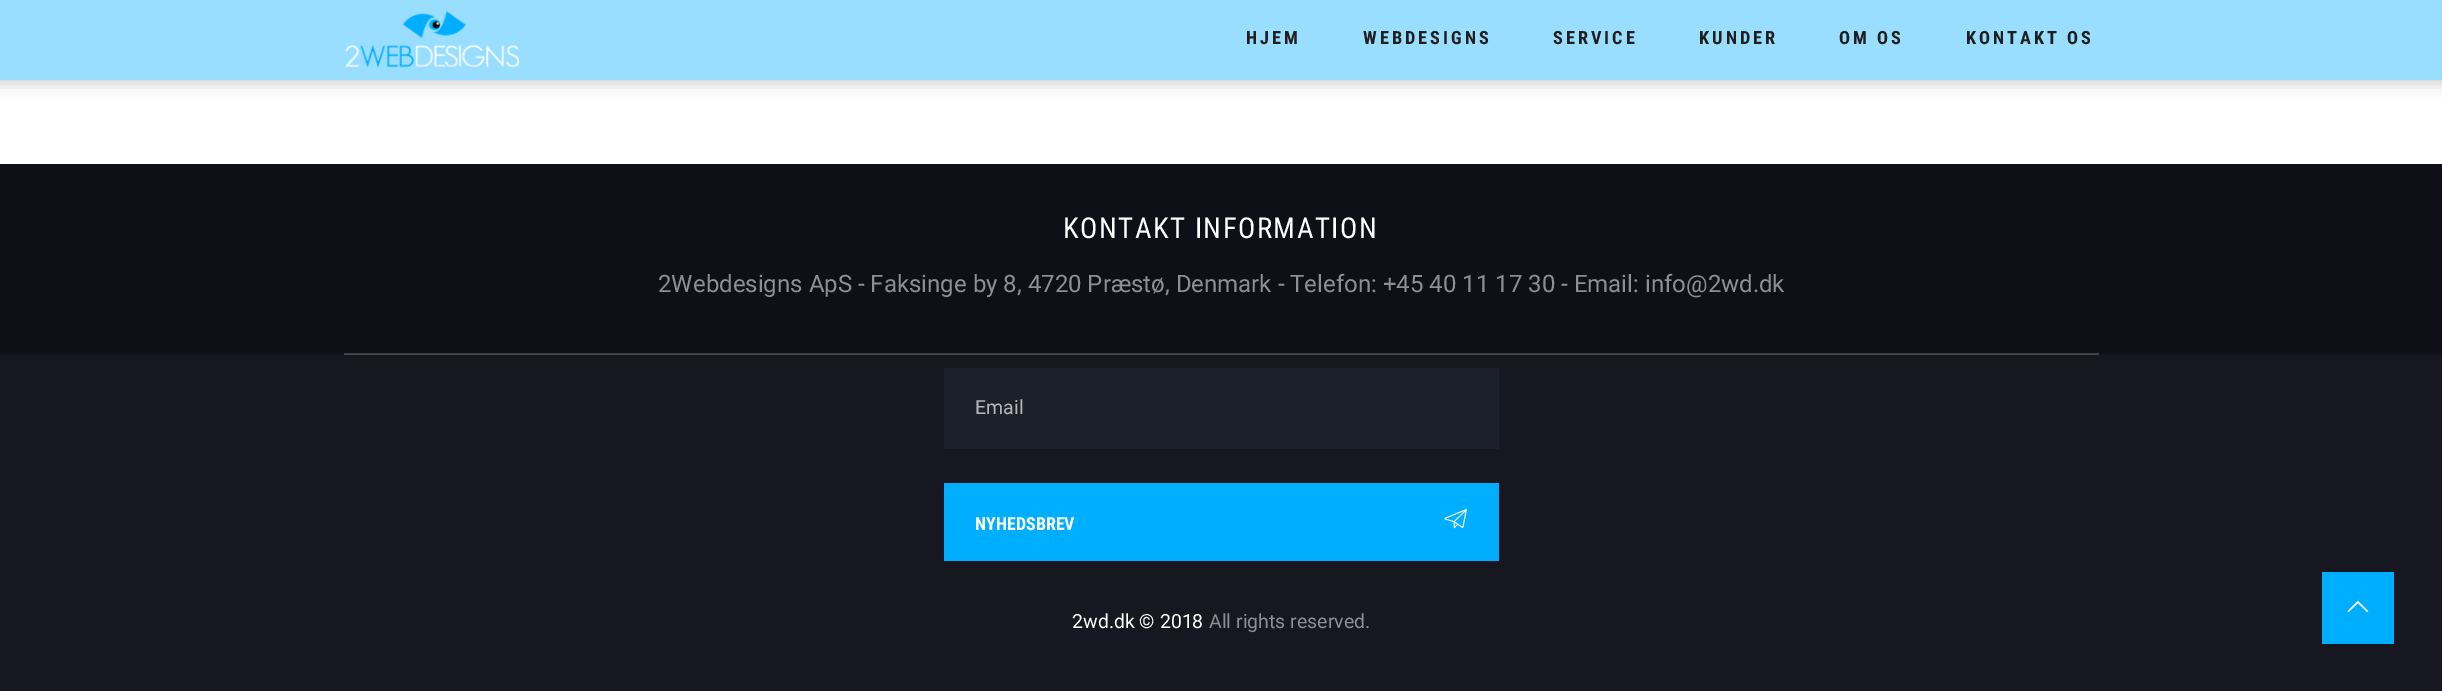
%!PS
<< /PageSize [2442 691] /PageUsesTransparency true >> setpagedevice
/rgb { 3 { 255 div 3 1 roll } repeat setrgbcolor } def
/font { [ exch dup neg 0 0 3 -1 roll 0 0 ] selectfont } def
/text { moveto show } def
/alpha { dup .setfillconstantalpha .setstrokeconstantalpha } def
/roundrect { 5 dict begin { /r /h /w /y /x } { exch def } forall
  x r add y moveto x w add y 2 copy h add r arct x w add y h add x 1 index r arct
  x y h add x y r arct x y 2 copy exch w add exch r arct closepath end } def
/shadow { 12 dict begin { /a /b /q /h /w /y /x } { exch def } forall gsave /was 0 def
  9 -2 -9 { dup b mul 4 div /e exch def 1 sub .425 mul 2.718 exch exp 1 add a .99 .min exch div /now exch def
    1 1 now sub 1 was sub div sub alpha /was now def
    w h .min e 2 mul add 0 gt { x e sub y e sub w e 2 mul add h e 2 mul add
      q e add b .6 mul add w h .min 2 div e add .min 0 .max roundrect fill } if } for grestore end } def
/picture { 5 dict begin { /h /w /y /x /name } { exch def } forall
  gsave x y translate w h scale
  w h 8 [w 0 0 h 0 0] name (r) file false 3 colorimage grestore end } def
0 .pushpdf14devicefilter
0 691 translate 1 -1 scale
4 setmiterlimit
255 255 255 rgb
0 0 2442 691 rectfill
0 0 0 rgb
-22 3 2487 80 0 7.5 0.2 shadow
154 222 255 rgb
0 0 2442 80 rectfill
(img_01.rgb) 345 10 174 58 picture
15 16 23 rgb
0 164 2442 190 rectfill
63 64 69 rgb
344 353 1755 1 rectfill
22 23 33 rgb
0 354 2442 337 rectfill
69 69 77 rgb
344 354 1755 1 rectfill
28 32 42 rgb
944 368 555 81 rectfill
0 174 255 rgb
944 483 555 78 rectfill
(img_02.rgb) 1444 509 23 20 picture
2322 572 72 72 rectfill
(img_03.rgb) 2347 601 22 12 picture
/RobotoCondensed-Bold 18.25 font
31 31 31 rgb
1246 44 moveto 3 0 (HJEM) ashow
1363 44 moveto 3 0 (WEBDESIGNS) ashow
1553 44 moveto 3 0 (SERVICE) ashow
1699 44 moveto 3 0 (KUNDER) ashow
1839 44 moveto 3 0 (OM OS) ashow
1966 44 moveto 3 0 (KONTAKT OS) ashow
/RobotoCondensed-Regular 28.75 font
255 255 255 rgb
1063 238 moveto 1.5 0 (KONTAKT INFORMATION) ashow
/Roboto-Regular 24 font
141 143 152 rgb
(2Webdesigns ApS - Faksinge by 8, 4720 Præstø, Denmark - Telefon: +45 40 11 17 30 - Email: info@2wd.dk) 658 292 text
/Roboto-Regular 19.5 font
183 183 183 rgb
(Email) 975 414 text
/RobotoCondensed-Bold 18 font
255 255 255 rgb
(NYHEDSBREV) 975 530 text
/Roboto-Regular 19.5 font
(2wd.dk © 2018) 1072 628 text
141 143 152 rgb
(All rights reserved.) 1209 628 text
.poppdf14devicefilter showpage
